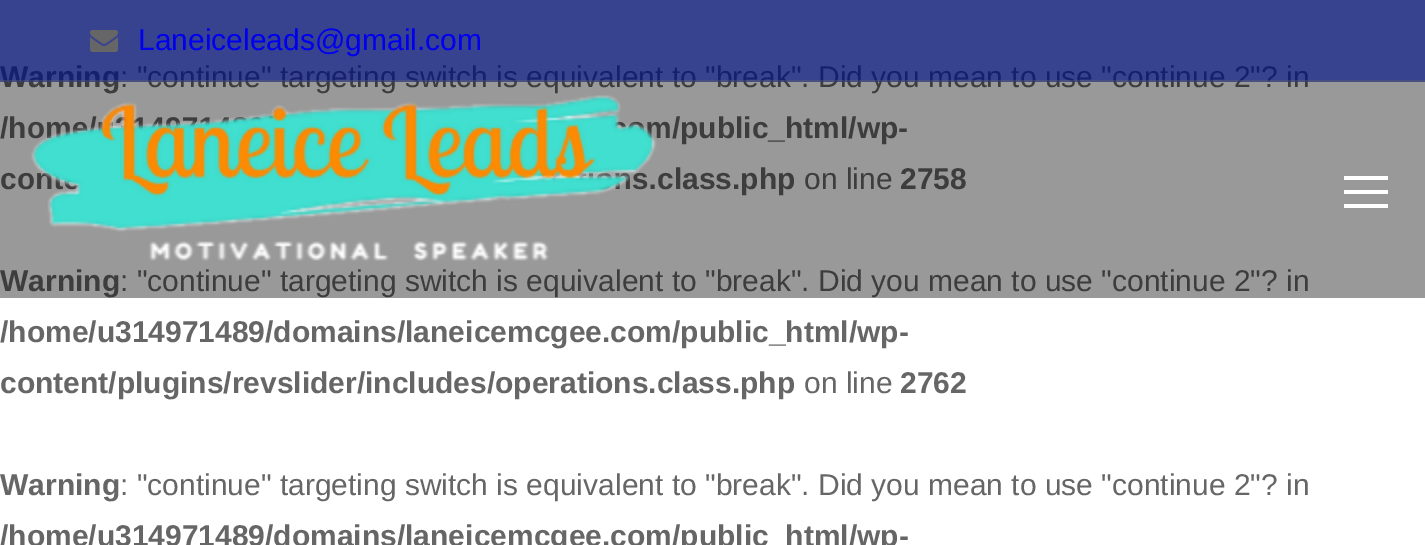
%!PS
<< /PageSize [1425 545] /PageUsesTransparency true >> setpagedevice
/rgb { 3 { 255 div 3 1 roll } repeat setrgbcolor } def
/font { [ exch dup neg 0 0 3 -1 roll 0 0 ] selectfont } def
/text { moveto show } def
/alpha { dup .setfillconstantalpha .setstrokeconstantalpha } def
/picture { 5 dict begin { /h /w /y /x /name } { exch def } forall
  gsave x y translate w h scale
  w h 8 [w 0 0 h 0 0] name (r) file false 3 colorimage grestore end } def
0 .pushpdf14devicefilter
0 545 translate 1 -1 scale
4 setmiterlimit
255 255 255 rgb
0 0 1425 545 rectfill
153 153 153 rgb
0 0 1425 298 rectfill
255 255 255 rgb
1344 176 44 4 rectfill
1344 190 44 4 rectfill
1344 204 44 4 rectfill
/LiberationSans-Bold 30 font
61 61 61 rgb
(Warning) 0 87 text
/LiberationSans-Regular 30 font
(: "continue" targeting switch is equivalent to "break". Did you mean to use "continue 2"? in) 120 87 text
0.63 alpha
0 16 138 rgb
0 0 1425 82 rectfill
1 alpha
0 0 238 rgb
(Laneiceleads@gmail.com) 138 50 text
(img_01.rgb) 90 30 28 22 picture
0.35 alpha
102 102 102 rgb
0 80 1425 2 rectfill
/LiberationSans-Bold 30 font
1 alpha
61 61 61 rgb
(/ho) 0 138 text
(m/public_html/wp-) 645 138 text
(con) 0 189 text
(s.class.php) 632 189 text
(img_02.rgb) 31 95 626 166 picture
/LiberationSans-Regular 30 font
(on line) 804 189 text
/LiberationSans-Bold 30 font
(2758) 900 189 text
(Warning) 0 291 text
/LiberationSans-Regular 30 font
(: "continue" targeting switch is equivalent to "break". Did you mean to use "continue 2"? in) 120 291 text
/LiberationSans-Bold 30 font
102 102 102 rgb
(/home/u314971489/domains/laneicemcgee.com/public_html/wp-) 0 342 text
(content/plugins/revslider/includes/operations.class.php) 0 393 text
/LiberationSans-Regular 30 font
(on line) 804 393 text
/LiberationSans-Bold 30 font
(2762) 900 393 text
(Warning) 0 495 text
/LiberationSans-Regular 30 font
(: "continue" targeting switch is equivalent to "break". Did you mean to use "continue 2"? in) 120 495 text
/LiberationSans-Bold 30 font
(/home/u314971489/domains/laneicemcgee.com/public_html/wp-) 0 546 text
.poppdf14devicefilter showpage
